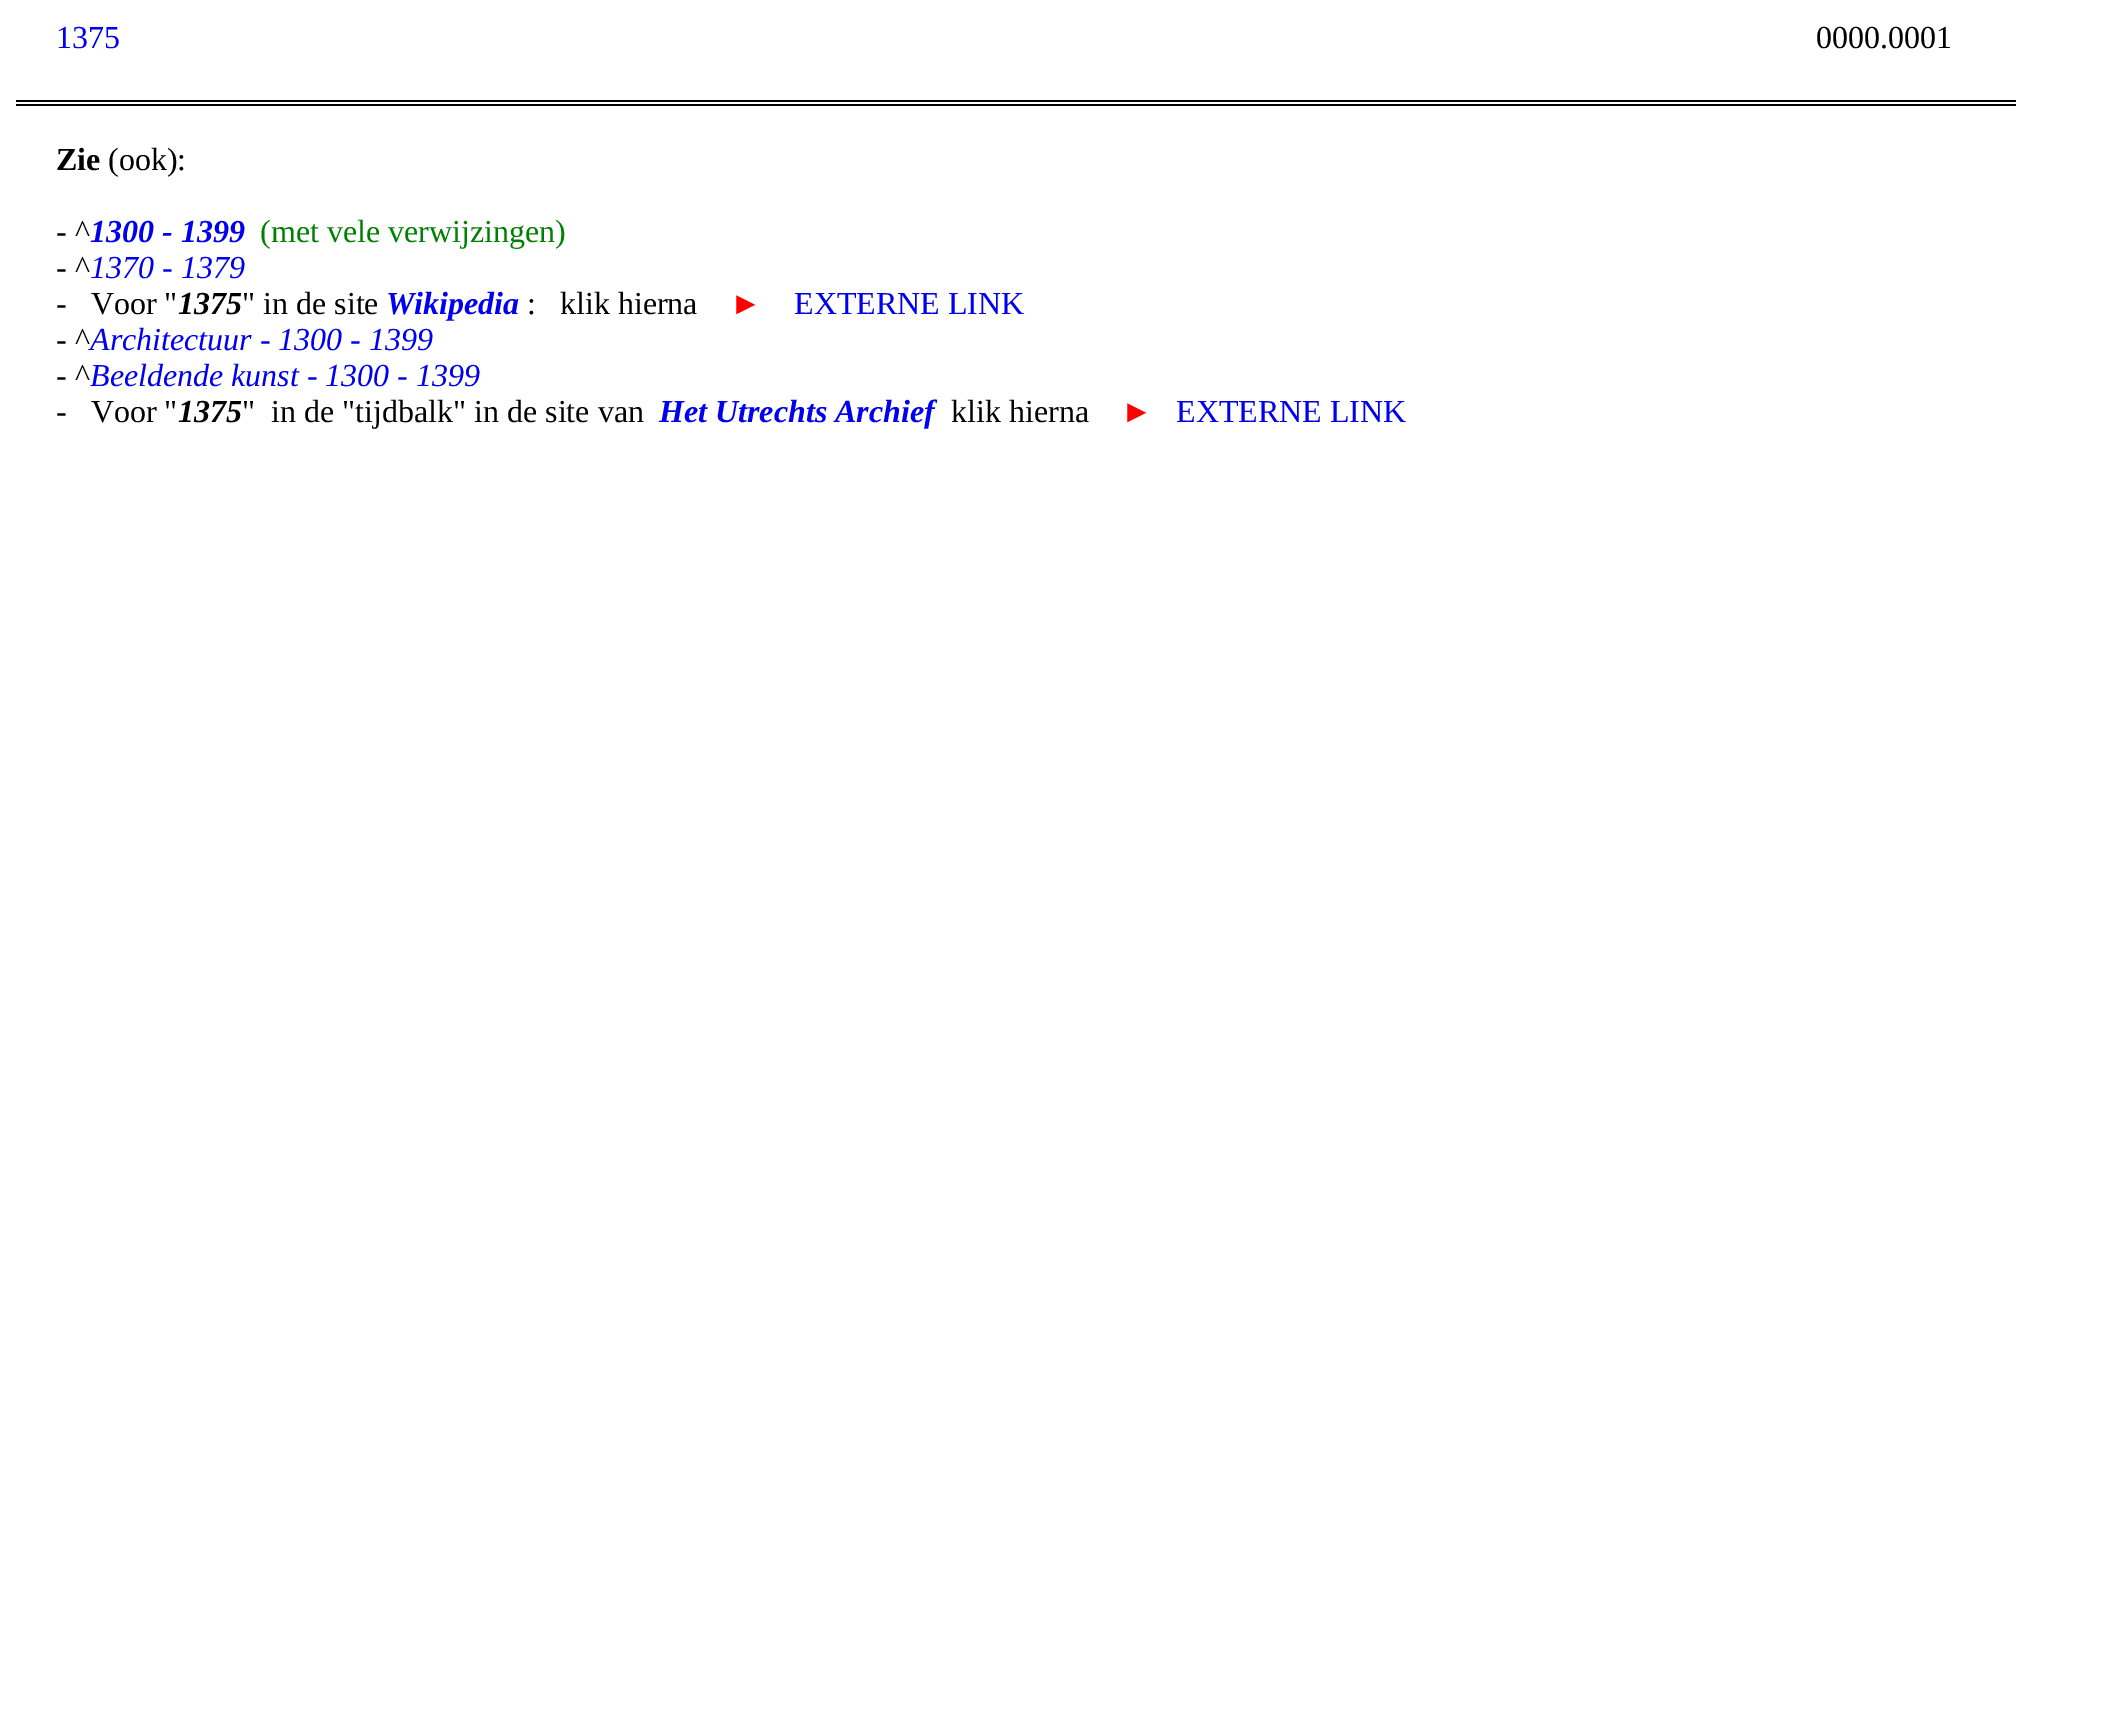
%!PS
<< /PageSize [2127 1729] >> setpagedevice
/rgb { 3 { 255 div 3 1 roll } repeat setrgbcolor } def
/font { [ exch dup neg 0 0 3 -1 roll 0 0 ] selectfont } def
/text { moveto show } def
0 1729 translate 1 -1 scale
4 setmiterlimit
255 255 255 rgb
0 0 2127 1729 rectfill
0 0 0 rgb
16 100 2000 2 rectfill
16 104 2000 2 rectfill
/LiberationSerif-Regular 32 font
0 0 238 rgb
(1375) 56 48 text
0 0 0 rgb
(0000.0001) 1816 48 text
/LiberationSerif-Bold 32 font
(Zie) 56 170 text
/LiberationSerif-Regular 32 font
(\(ook\):) 108 170 text
(- ^) 56 242 text
/LiberationSerif-BoldItalic 32 font
0 0 238 rgb
(1300 - 1399) 90 242 text
/LiberationSerif-Regular 32 font
0 128 0 rgb
(\(met vele verwijzingen\)) 260 242 text
0 0 0 rgb
(- ^) 56 278 text
/LiberationSerif-Italic 32 font
0 0 238 rgb
(1370 - 1379) 90 278 text
/LiberationSerif-Regular 32 font
0 0 0 rgb
(-   Voor ") 56 314 text
/LiberationSerif-BoldItalic 32 font
(1375) 178 314 text
/LiberationSerif-Regular 32 font
(" in de site) 242 314 text
/LiberationSerif-BoldItalic 32 font
0 0 238 rgb
(Wikipedia) 386 314 text
/LiberationSerif-Regular 32 font
0 0 0 rgb
(:   klik hierna) 527 314 text
255 0 0 rgb
(►) 730 314 text
0 0 238 rgb
(EXTERNE LINK) 794 314 text
0 0 0 rgb
(- ^) 56 350 text
/LiberationSerif-Italic 32 font
0 0 238 rgb
(Architectuur - 1300 - 1399) 90 350 text
/LiberationSerif-Regular 32 font
0 0 0 rgb
(- ^) 56 386 text
/LiberationSerif-Italic 32 font
0 0 238 rgb
(Beeldende kunst - 1300 - 1399) 90 386 text
/LiberationSerif-Regular 32 font
0 0 0 rgb
(-   Voor ") 56 422 text
/LiberationSerif-BoldItalic 32 font
(1375) 178 422 text
/LiberationSerif-Regular 32 font
("  in de "tijdbalk" in de site van) 242 422 text
/LiberationSerif-BoldItalic 32 font
0 0 238 rgb
(Het Utrechts Archief) 659 422 text
/LiberationSerif-Regular 32 font
0 0 0 rgb
(klik hierna) 951 422 text
255 0 0 rgb
(►) 1121 422 text
0 0 238 rgb
(EXTERNE LINK) 1176 422 text
showpage
